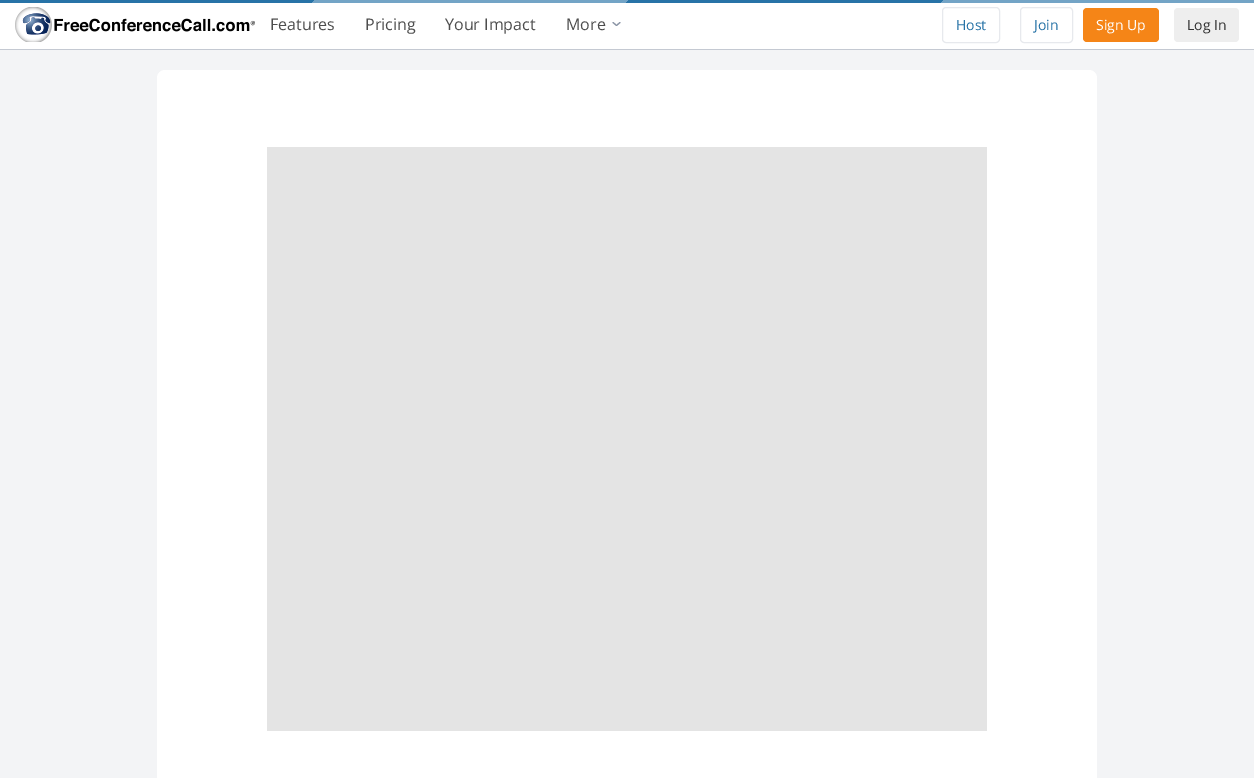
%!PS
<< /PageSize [1254 778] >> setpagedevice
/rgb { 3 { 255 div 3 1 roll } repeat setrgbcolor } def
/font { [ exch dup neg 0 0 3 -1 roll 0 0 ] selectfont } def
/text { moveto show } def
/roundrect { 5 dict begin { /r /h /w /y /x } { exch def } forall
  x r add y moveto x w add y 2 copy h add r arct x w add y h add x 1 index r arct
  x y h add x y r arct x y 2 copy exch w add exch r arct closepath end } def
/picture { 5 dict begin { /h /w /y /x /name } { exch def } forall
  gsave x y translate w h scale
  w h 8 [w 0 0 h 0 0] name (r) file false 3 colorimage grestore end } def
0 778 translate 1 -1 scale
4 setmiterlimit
243 244 246 rgb
0 0 1254 778 rectfill
gsave 0 0 moveto 1254 0 rlineto 0 3 rlineto -1254 0 rlineto closepath clip newpath
<< /ShadingType 2 /ColorSpace /DeviceRGB /Coords [941 316 313 -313] /Extend [true true] /Function << /FunctionType 3 /Domain [0 1] /Functions [<< /FunctionType 2 /Domain [0 1] /C0 [0.451 0.643 0.776] /C1 [0.451 0.643 0.776] /N 1 >> << /FunctionType 2 /Domain [0 1] /C0 [0.153 0.451 0.655] /C1 [0.153 0.451 0.655] /N 1 >> << /FunctionType 2 /Domain [0 1] /C0 [0.451 0.643 0.776] /C1 [0.451 0.643 0.776] /N 1 >> << /FunctionType 2 /Domain [0 1] /C0 [0.153 0.451 0.655] /C1 [0.153 0.451 0.655] /N 1 >>] /Bounds [0.25 0.5 0.75] /Encode [0 1 0 1 0 1 0 1] >> >> shfill grestore
255 255 255 rgb
0 3 1254 46 rectfill
196 201 210 rgb
0 49 1254 1 rectfill
(img_01.rgb) 15 7 240 35 picture
137 147 164 rgb
1.1 setlinewidth
1 setlinecap
1 setlinejoin
620 22.5 moveto -3.5 3 rlineto -3.5 -3 rlineto stroke
231 233 237 rgb
1 setlinewidth
0 setlinecap
0 setlinejoin
942.5 7.5 57 35 3.5 roundrect stroke
1020.5 7.5 52 35 3.5 roundrect stroke
245 133 23 rgb
1083 8 76 34 4 roundrect fill
238 238 238 rgb
1174 8 65 34 4 roundrect fill
255 255 255 rgb
157 70 940 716 8 roundrect fill
228 228 228 rgb
267 147 720 584 rectfill
/OpenSans-Regular 16 font
77 77 77 rgb
(Features) 270 30 text
(Pricing) 365 30 text
(Your Impact) 445 30 text
(More) 566 30 text
/OpenSans-Regular 14 font
39 115 167 rgb
(Host) 956 30 text
(Join) 1034 30 text
255 255 255 rgb
(Sign Up) 1096 30 text
51 51 51 rgb
(Log In) 1187 30 text
showpage
